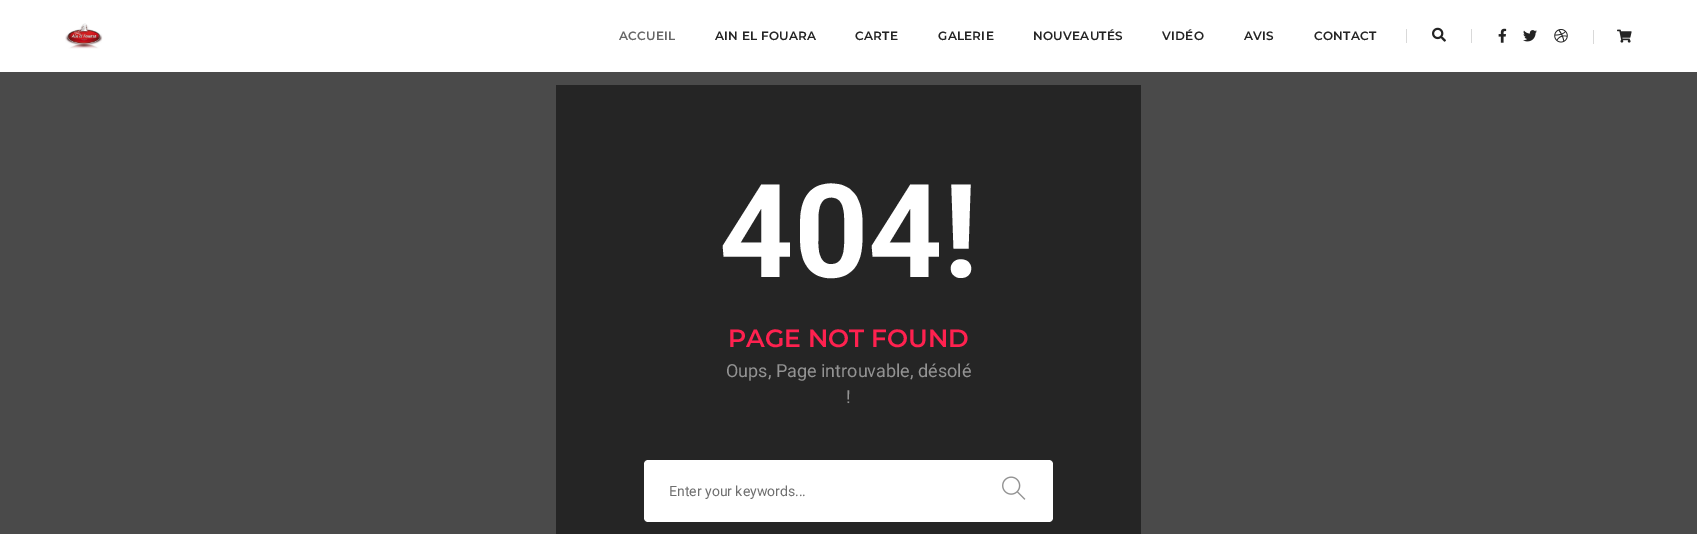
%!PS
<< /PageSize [1697 534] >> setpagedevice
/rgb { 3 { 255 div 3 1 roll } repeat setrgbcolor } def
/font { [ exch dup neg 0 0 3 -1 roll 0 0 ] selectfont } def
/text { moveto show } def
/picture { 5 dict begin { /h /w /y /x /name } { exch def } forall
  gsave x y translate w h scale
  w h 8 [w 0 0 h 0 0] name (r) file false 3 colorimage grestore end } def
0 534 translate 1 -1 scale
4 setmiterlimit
74 74 74 rgb
0 0 1697 534 rectfill
255 255 255 rgb
0 0 1697 72 rectfill
(img_01.rgb) 65 23 38 26 picture
217 217 217 rgb
1406 29 1 14 rectfill
(img_02.rgb) 1432 27 14 15 picture
1471 29 1 14 rectfill
(img_03.rgb) 1498 28 9 15 picture
(img_04.rgb) 1523 30 14 12 picture
(img_05.rgb) 1554 29 14 14 picture
1593 30 1 14 rectfill
(img_06.rgb) 1617 29 15 14 picture
37 37 37 rgb
556 85 585 449 rectfill
255 255 255 rgb
648 460 moveto 328 0 rlineto 0 62 rlineto -328 0 rlineto -2 0 -4 -2 -4 -4 rcurveto 0 -54 rlineto 0 -2 2 -4 4 -4 rcurveto closepath fill
975 460 moveto 74 0 rlineto 2 0 4 2 4 4 rcurveto 0 54 rlineto 0 2 -2 4 -4 4 rcurveto -74 0 rlineto closepath fill
(img_07.rgb) 1002 476 24 24 picture
/Montserrat-SemiBold 12 font
102 102 102 rgb
619 40 moveto 0.25 0 (ACCUEIL) ashow
35 35 35 rgb
715 40 moveto 0.25 0 (AIN EL FOUARA) ashow
855 40 moveto 0.25 0 (CARTE) ashow
938 40 moveto 0.25 0 (GALERIE) ashow
1033 40 moveto 0.25 0 (NOUVEAUTÉS) ashow
1162 40 moveto 0.25 0 (VIDÉO) ashow
1244 40 moveto 0.25 0 (AVIS) ashow
1314 40 moveto 0.25 0 (CONTACT) ashow
/Roboto-Bold 130 font
255 255 255 rgb
(404!) 719 277 text
/Montserrat-SemiBold 25 font
255 33 79 rgb
(PAGE NOT FOUND) 728 347 text
/Roboto-Regular 18 font
147 147 147 rgb
(Oups, Page introuvable, désolé) 726 377 text
(!) 846 403 text
/Roboto-Regular 14 font
111 111 111 rgb
(Enter your keywords...) 669 496 text
showpage
